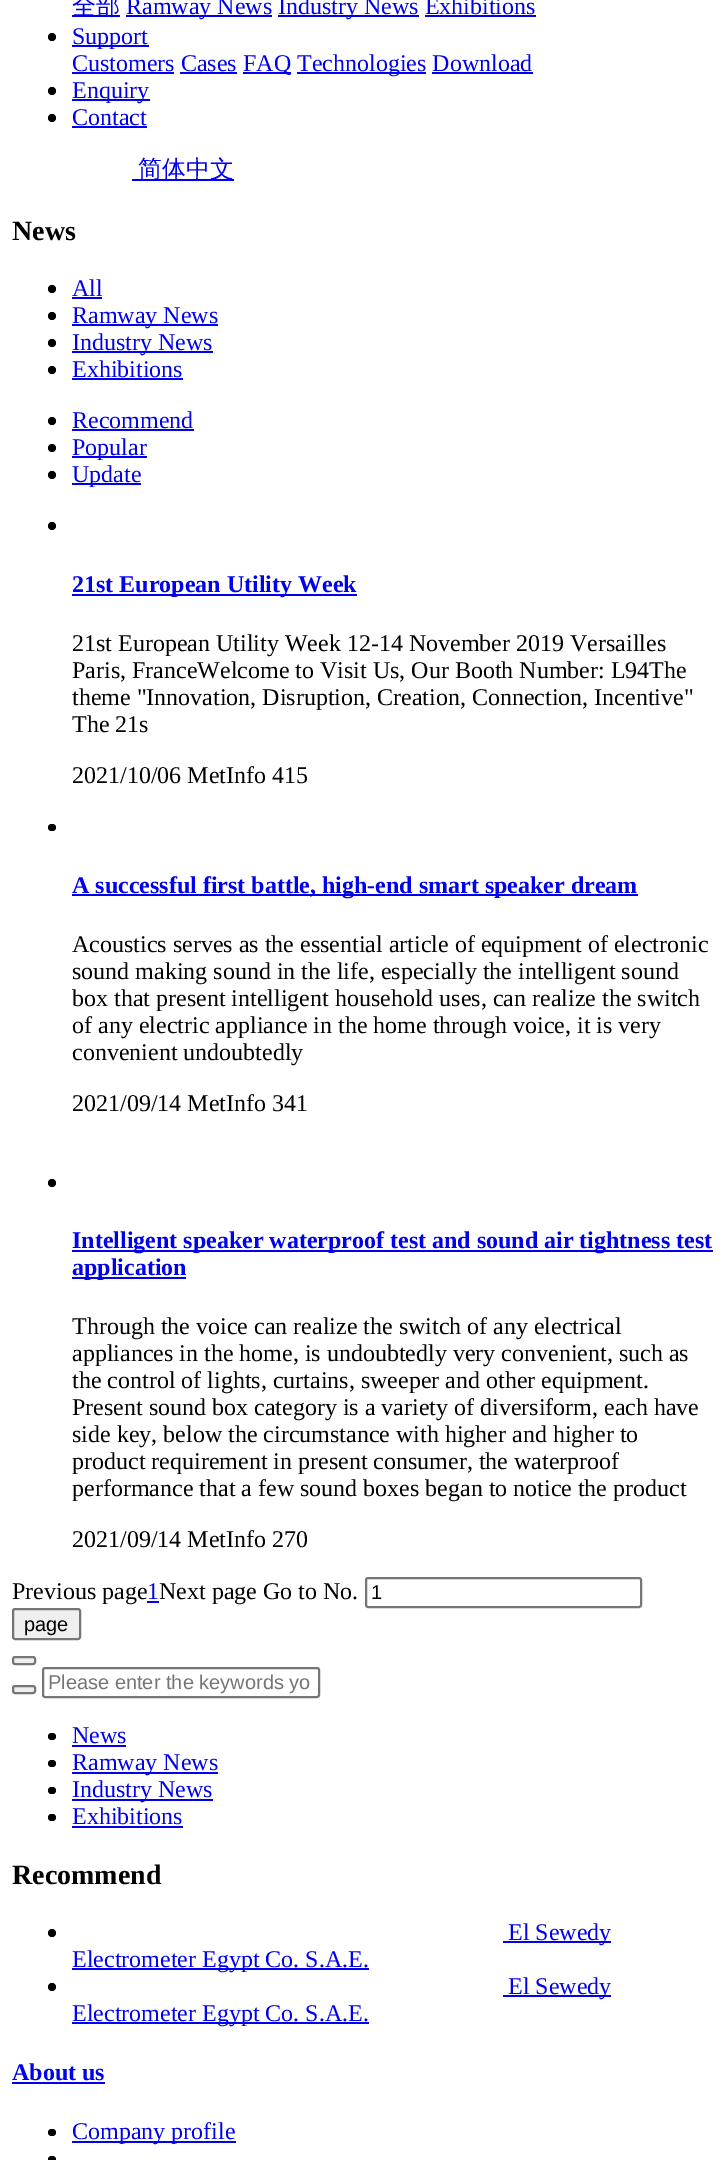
%!PS
<< /PageSize [727 2160] >> setpagedevice
/rgb { 3 { 255 div 3 1 roll } repeat setrgbcolor } def
/font { [ exch dup neg 0 0 3 -1 roll 0 0 ] selectfont } def
/text { moveto show } def
/circle { newpath 0 360 arc closepath } def
/roundrect { 5 dict begin { /r /h /w /y /x } { exch def } forall
  x r add y moveto x w add y 2 copy h add r arct x w add y h add x 1 index r arct
  x y h add x y r arct x y 2 copy exch w add exch r arct closepath end } def
0 2160 translate 1 -1 scale
4 setmiterlimit
255 255 255 rgb
0 0 727 2160 rectfill
0 0 238 rgb
72 15 48 2 rectfill
126 15 146 2 rectfill
278 15 141 2 rectfill
425 15 111 2 rectfill
0 0 0 rgb
52 37 4 circle fill
0 0 238 rgb
72 45 77 2 rectfill
72 72 102 2 rectfill
243 72 48 2 rectfill
297 72 129 2 rectfill
180 72 57 2 rectfill
432 72 101 2 rectfill
0 0 0 rgb
52 91 4 circle fill
0 0 238 rgb
72 99 78 2 rectfill
0 0 0 rgb
52 118 4 circle fill
0 0 238 rgb
72 126 75 2 rectfill
132 179 102 2 rectfill
0 0 0 rgb
52 289 4 circle fill
0 0 238 rgb
72 297 30 2 rectfill
0 0 0 rgb
52 316 4 circle fill
0 0 238 rgb
72 324 146 2 rectfill
0 0 0 rgb
52 343 4 circle fill
0 0 238 rgb
72 351 141 2 rectfill
0 0 0 rgb
52 370 4 circle fill
0 0 238 rgb
72 378 111 2 rectfill
0 0 0 rgb
52 421 4 circle fill
0 0 238 rgb
72 429 122 2 rectfill
0 0 0 rgb
52 448 4 circle fill
0 0 238 rgb
72 456 75 2 rectfill
0 0 0 rgb
52 475 4 circle fill
0 0 238 rgb
72 483 69 2 rectfill
0 0 0 rgb
52 526 4 circle fill
0 0 238 rgb
72 594 285 2 rectfill
0 0 0 rgb
48 824 8 7 3.5 roundrect fill
0 0 238 rgb
72 894 566 2 rectfill
0 0 0 rgb
52 1183 4 circle fill
0 0 238 rgb
72 1250 641 2 rectfill
72 1277 114 2 rectfill
147 1601 12 2 rectfill
118 118 118 rgb
2 setlinewidth
366 1578 275 29 2 roundrect stroke
239 239 239 rgb
13 1609 67 30 2 roundrect gsave fill grestore
118 118 118 rgb
stroke
239 239 239 rgb
13 1657 22 7 2 roundrect gsave fill grestore
118 118 118 rgb
stroke
239 239 239 rgb
13 1686 22 7 2 roundrect gsave fill grestore
118 118 118 rgb
stroke
43 1668 276 29 2 roundrect stroke
0 0 0 rgb
48 1733 8 7 3.5 roundrect fill
0 0 238 rgb
72 1745 54 2 rectfill
0 0 0 rgb
48 1760 8 7 3.5 roundrect fill
0 0 238 rgb
72 1772 146 2 rectfill
0 0 0 rgb
48 1787 8 7 3.5 roundrect fill
0 0 238 rgb
72 1799 141 2 rectfill
0 0 0 rgb
48 1814 8 7 3.5 roundrect fill
0 0 238 rgb
72 1826 111 2 rectfill
0 0 0 rgb
52 1933 4 circle fill
0 0 238 rgb
503 1941 108 2 rectfill
72 1968 297 2 rectfill
0 0 0 rgb
52 1987 4 circle fill
0 0 238 rgb
503 1995 108 2 rectfill
72 2022 297 2 rectfill
12 2082 93 2 rectfill
0 0 0 rgb
48 2129 8 7 3.5 roundrect fill
0 0 238 rgb
72 2141 164 2 rectfill
0 0 0 rgb
48 2156 8 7 3.5 roundrect fill
/WenQuanYiZenHei-Medium 24 font
0 0 238 rgb
(全部) 72 14 text
/LiberationSerif-Regular 24 font
(Ramway News) 126 14 text
(Industry News Exhibitions) 278 14 text
(Support) 72 44 text
(Customers Cases) 72 71 text
(FAQ) 243 71 text
(Technologies Download) 297 71 text
(Enquiry) 72 98 text
(Contact) 72 125 text
/WenQuanYiZenHei-Medium 24 font
(简体中文) 138 177 text
/LiberationSerif-Bold 28 font
0 0 0 rgb
(News) 12 240 text
/LiberationSerif-Regular 24 font
0 0 238 rgb
(All) 72 296 text
(Ramway News) 72 323 text
(Industry News) 72 350 text
(Exhibitions) 72 377 text
(Recommend) 72 428 text
(Popular) 72 455 text
(Update) 72 482 text
/LiberationSerif-Bold 24 font
(21st European Utility Week) 72 592 text
/LiberationSerif-Regular 24 font
0 0 0 rgb
(21st European Utility Week 12-14 November 2019 Versailles) 72 651 text
(Paris, FranceWelcome to Visit Us, Our Booth Number: L94The) 72 678 text
(theme "Innovation, Disruption, Creation, Connection, Incentive") 72 705 text
(The 21s) 72 732 text
(2021/10/06 MetInfo 415) 72 783 text
/LiberationSerif-Bold 24 font
0 0 238 rgb
(A successful first battle, high-end smart speaker dream) 72 893 text
/LiberationSerif-Regular 24 font
0 0 0 rgb
(Acoustics serves as the essential article of equipment of electronic) 72 952 text
(sound making sound in the life, especially the intelligent sound) 72 979 text
(box that present intelligent household uses, can realize the switch) 72 1006 text
(of any electric appliance in the home through voice, it is very) 72 1033 text
(convenient undoubtedly) 72 1060 text
(2021/09/14 MetInfo 341) 72 1111 text
/LiberationSerif-Bold 24 font
0 0 238 rgb
(Intelligent speaker waterproof test and sound air tightness test) 72 1248 text
(application) 72 1275 text
/LiberationSerif-Regular 24 font
0 0 0 rgb
(Through the voice can realize the switch of any electrical) 72 1334 text
(appliances in the home, is undoubtedly very convenient, such as) 72 1361 text
(the control of lights, curtains, sweeper and other equipment.) 72 1388 text
(Present sound box category is a variety of diversiform, each have) 72 1415 text
(side key, below the circumstance with higher and higher to) 72 1442 text
(product requirement in present consumer, the waterproof) 72 1469 text
(performance that a few sound boxes began to notice the product) 72 1496 text
(2021/09/14 MetInfo 270) 72 1547 text
(Previous page) 12 1599 text
0 0 238 rgb
(1) 147 1599 text
0 0 0 rgb
(Next page Go to No.) 159 1599 text
/LiberationSans-Regular 20 font
(1) 371 1599 text
(page) 24 1631 text
117 117 117 rgb
(Please enter the keywords yo) 48 1689 text
/LiberationSerif-Regular 24 font
0 0 238 rgb
(News) 72 1743 text
(Ramway News) 72 1770 text
(Industry News) 72 1797 text
(Exhibitions) 72 1824 text
/LiberationSerif-Bold 28 font
0 0 0 rgb
(Recommend) 12 1884 text
/LiberationSerif-Regular 24 font
0 0 238 rgb
(El Sewedy) 508 1940 text
(Electrometer Egypt Co. S.A.E.) 72 1967 text
(El Sewedy) 508 1994 text
(Electrometer Egypt Co. S.A.E.) 72 2021 text
/LiberationSerif-Bold 24 font
(About us) 12 2080 text
/LiberationSerif-Regular 24 font
(Company profile) 72 2139 text
showpage
